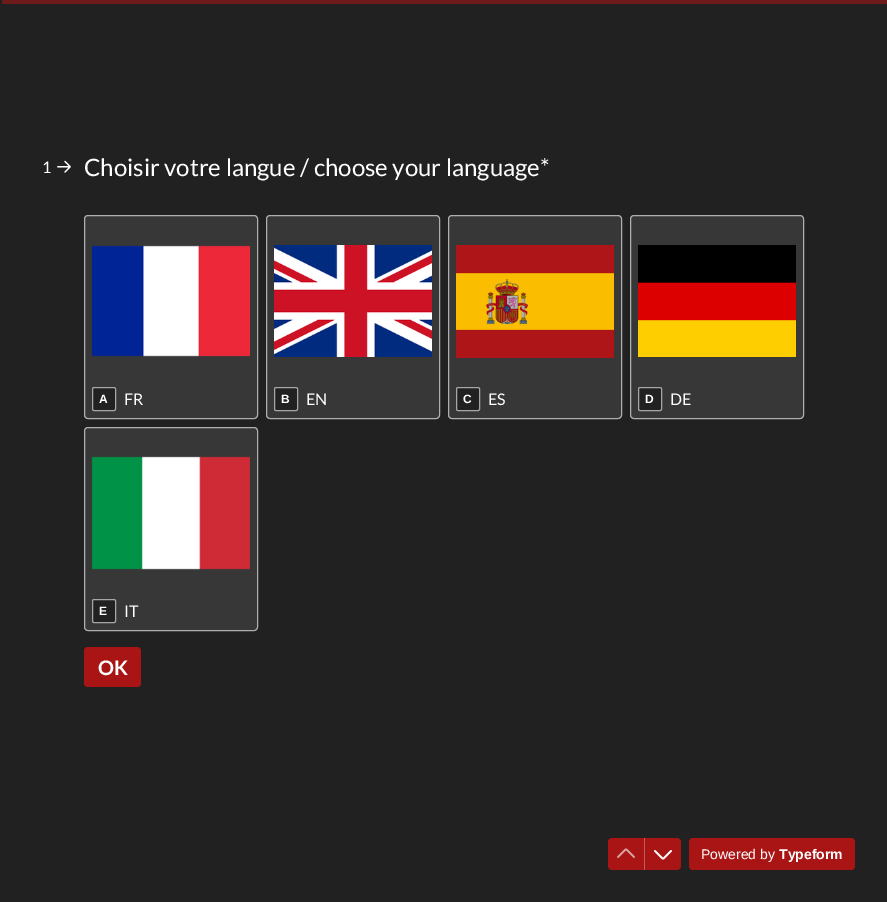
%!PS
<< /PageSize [887 902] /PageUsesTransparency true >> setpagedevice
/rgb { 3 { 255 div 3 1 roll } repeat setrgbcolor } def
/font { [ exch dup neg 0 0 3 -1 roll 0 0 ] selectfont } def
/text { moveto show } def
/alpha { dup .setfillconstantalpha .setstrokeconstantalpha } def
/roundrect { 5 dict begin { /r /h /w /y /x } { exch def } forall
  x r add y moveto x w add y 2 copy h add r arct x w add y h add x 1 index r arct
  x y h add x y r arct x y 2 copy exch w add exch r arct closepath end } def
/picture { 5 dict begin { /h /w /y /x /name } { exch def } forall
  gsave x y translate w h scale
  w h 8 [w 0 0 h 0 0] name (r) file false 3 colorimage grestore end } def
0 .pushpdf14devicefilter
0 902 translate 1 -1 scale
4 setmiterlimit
33 33 33 rgb
0 0 887 902 rectfill
109 26 26 rgb
0 0 887 4 rectfill
33 33 33 rgb
0 0 2 4 rectfill
(img_01.rgb) 57 160 14 13 picture
55 55 55 rgb
84 215 174 204 4 roundrect fill
0.6 alpha
255 255 255 rgb
84.5 215.5 173 203 3.5 roundrect stroke
1 alpha
(img_02.rgb) 92 245 158 112 picture
33 33 33 rgb
92.5 387.5 23 23 1.5 roundrect gsave fill grestore
166 166 166 rgb
stroke
55 55 55 rgb
266 215 174 204 4 roundrect fill
0.6 alpha
255 255 255 rgb
266.5 215.5 173 203 3.5 roundrect stroke
1 alpha
(img_03.rgb) 274 245 158 112 picture
33 33 33 rgb
274.5 387.5 23 23 1.5 roundrect gsave fill grestore
166 166 166 rgb
stroke
55 55 55 rgb
448 215 174 204 4 roundrect fill
0.6 alpha
255 255 255 rgb
448.5 215.5 173 203 3.5 roundrect stroke
1 alpha
(img_04.rgb) 456 245 158 113 picture
33 33 33 rgb
456.5 387.5 23 23 1.5 roundrect gsave fill grestore
166 166 166 rgb
stroke
55 55 55 rgb
630 215 174 204 4 roundrect fill
0.6 alpha
255 255 255 rgb
630.5 215.5 173 203 3.5 roundrect stroke
1 alpha
(img_05.rgb) 638 245 158 112 picture
33 33 33 rgb
638.5 387.5 23 23 1.5 roundrect gsave fill grestore
166 166 166 rgb
stroke
55 55 55 rgb
84 427 174 204 4 roundrect fill
0.6 alpha
255 255 255 rgb
84.5 427.5 173 203 3.5 roundrect stroke
1 alpha
(img_06.rgb) 91 456 159 114 picture
33 33 33 rgb
92.5 599.5 23 23 1.5 roundrect gsave fill grestore
166 166 166 rgb
stroke
169 20 20 rgb
84 647 57 40 4 roundrect fill
612 838 moveto 32 0 rlineto 0 32 rlineto -32 0 rlineto -2 0 -4 -2 -4 -4 rcurveto 0 -24 rlineto 0 -2 2 -4 4 -4 rcurveto closepath fill
(img_07.rgb) 617 848 18 10 picture
195 91 91 rgb
644 838 1 32 rectfill
169 20 20 rgb
645 838 moveto 32 0 rlineto 2 0 4 2 4 4 rcurveto 0 24 rlineto 0 2 -2 4 -4 4 rcurveto -32 0 rlineto closepath fill
(img_08.rgb) 654 850 18 10 picture
689 838 166 32 4 roundrect fill
/Lato-Regular 16 font
255 255 255 rgb
(1) 42 173 text
/Lato-Regular 24 font
(Choisir votre langue / choose your language*) 84 176 text
/LiberationSans-Bold 12 font
(A) 99 403 text
/Lato-Regular 16 font
(FR) 124 405 text
/LiberationSans-Bold 12 font
(B) 281 403 text
/Lato-Regular 16 font
(EN) 306 405 text
/LiberationSans-Bold 12 font
(C) 463 403 text
/Lato-Regular 16 font
(ES) 488 405 text
/LiberationSans-Bold 12 font
(D) 645 403 text
/Lato-Regular 16 font
(DE) 670 405 text
/LiberationSans-Bold 12 font
(E) 99 615 text
/Lato-Regular 16 font
(IT) 124 617 text
/Lato-Bold 20 font
(OK) 98 675 text
/LiberationSans-Regular 14 font
(Powered by) 701 859 text
/LiberationSans-Bold 14 font
(Typeform) 779 859 text
.poppdf14devicefilter showpage
